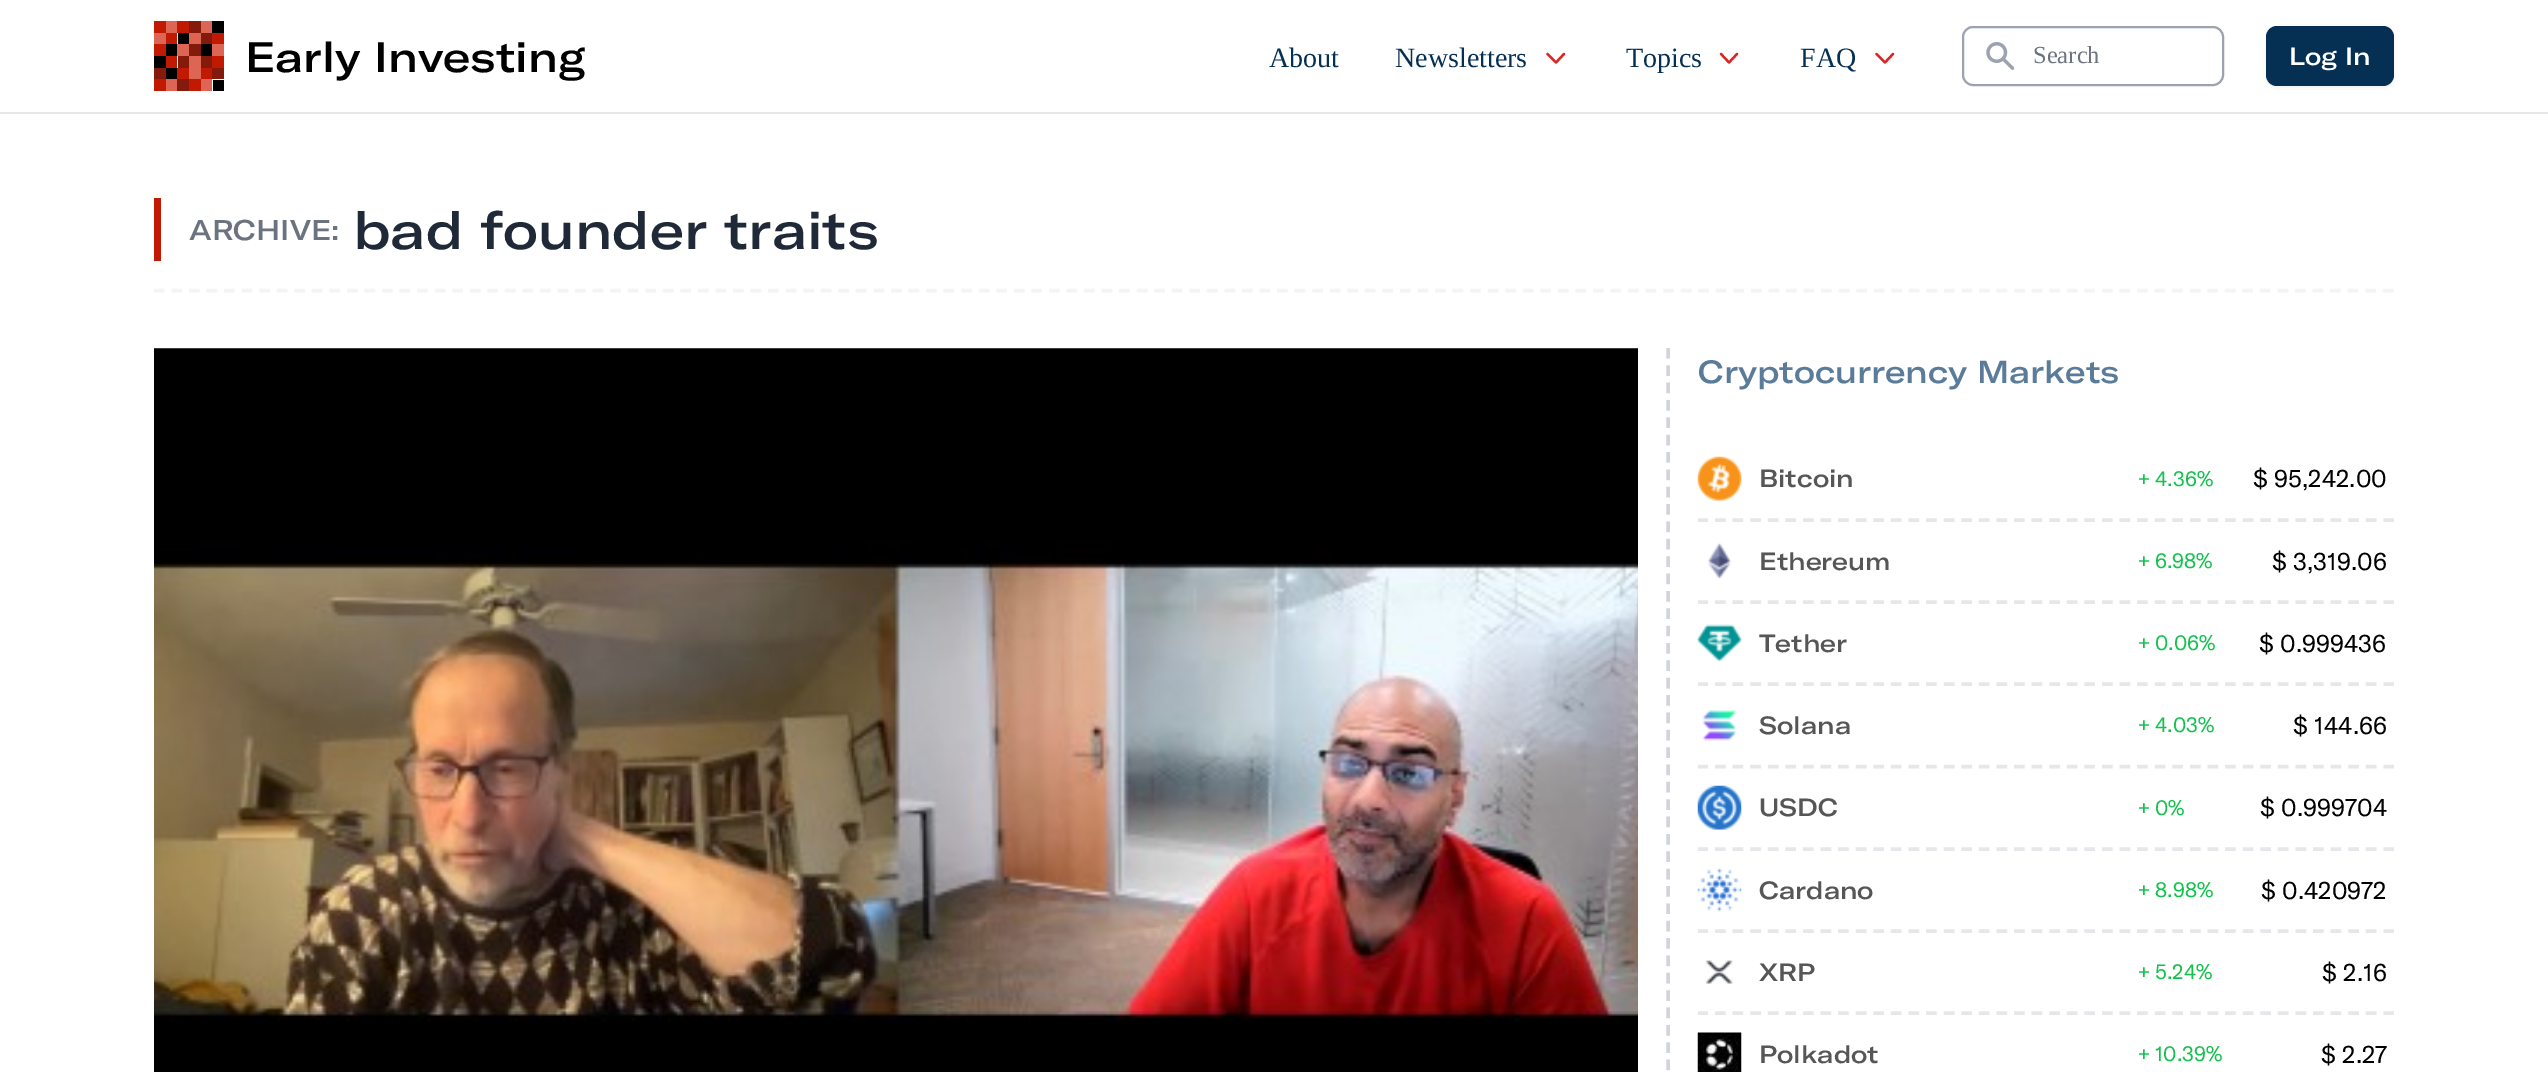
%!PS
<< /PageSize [2548 1072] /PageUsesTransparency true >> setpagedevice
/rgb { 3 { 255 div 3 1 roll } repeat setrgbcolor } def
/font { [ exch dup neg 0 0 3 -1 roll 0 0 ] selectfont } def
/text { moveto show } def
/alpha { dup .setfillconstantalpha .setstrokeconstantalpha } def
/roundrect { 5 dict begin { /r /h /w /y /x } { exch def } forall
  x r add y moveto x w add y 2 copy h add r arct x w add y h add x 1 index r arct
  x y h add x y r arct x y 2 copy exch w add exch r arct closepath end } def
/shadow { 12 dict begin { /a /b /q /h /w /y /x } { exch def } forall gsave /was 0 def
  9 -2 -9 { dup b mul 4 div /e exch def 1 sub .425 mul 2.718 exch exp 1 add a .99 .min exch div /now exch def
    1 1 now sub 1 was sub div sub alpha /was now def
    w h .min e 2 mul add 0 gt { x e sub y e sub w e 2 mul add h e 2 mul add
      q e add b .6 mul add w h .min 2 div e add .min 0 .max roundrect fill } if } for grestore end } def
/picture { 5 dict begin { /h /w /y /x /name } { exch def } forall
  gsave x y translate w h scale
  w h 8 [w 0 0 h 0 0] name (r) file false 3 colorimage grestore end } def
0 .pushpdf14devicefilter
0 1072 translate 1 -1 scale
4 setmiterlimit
255 255 255 rgb
0 0 2548 1072 rectfill
229 231 235 rgb
0 112 2548 2 rectfill
(img_01.rgb) 154 21 70 70 picture
220 38 38 rgb
2.3 setlinewidth
1 setlinecap
1 setlinejoin
1564 54 moveto -8 8.5 rlineto -8.5 -8.5 rlineto stroke
1737 54 moveto -8 8.5 rlineto -8 -8.5 rlineto stroke
1893 54 moveto -8 8.5 rlineto -8.5 -8.5 rlineto stroke
156 163 175 rgb
2 setlinewidth
0 setlinecap
0 setlinejoin
1963 27 260 58 10 roundrect stroke
(img_02.rgb) 1986 42 29 28 picture
0 0 0 rgb
2266 28 128 60 11 2 0.05 shadow
6 47 84 rgb
2266 26 128 60 11 roundrect fill
243 244 246 rgb
3.5 setlinewidth
[10.5 7.05] 0 setdash
154 290.5 moveto 2240 0 rlineto stroke
193 25 2 rgb
154 198 7 63 rectfill
(img_03.rgb) 154 348 1484 724 picture
209 213 219 rgb
[10.5 6.86] 0 setdash
1668 348 moveto 0 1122 rlineto stroke
gsave
1698 439 696 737 9 roundrect clip newpath
229 231 235 rgb
[10.5 7.09] 0 setdash
1697.5 520 moveto 696.5 0 rlineto stroke
grestore
(img_04.rgb) 1697 456 45 45 picture
gsave
1698 439 696 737 9 roundrect clip newpath
229 231 235 rgb
[10.5 7.09] 0 setdash
1697.5 602 moveto 696.5 0 rlineto stroke
grestore
(img_05.rgb) 1707 542 24 38 picture
gsave
1698 439 696 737 9 roundrect clip newpath
229 231 235 rgb
[10.5 7.09] 0 setdash
1697.5 684 moveto 696.5 0 rlineto stroke
grestore
(img_06.rgb) 1697 624 45 38 picture
gsave
1698 439 696 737 9 roundrect clip newpath
229 231 235 rgb
[10.5 7.09] 0 setdash
1697.5 766.5 moveto 696.5 0 rlineto stroke
grestore
(img_07.rgb) 1702 710 35 31 picture
gsave
1698 439 696 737 9 roundrect clip newpath
229 231 235 rgb
[10.5 7.09] 0 setdash
1697.5 849 moveto 696.5 0 rlineto stroke
grestore
(img_08.rgb) 1697 785 45 45 picture
gsave
1698 439 696 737 9 roundrect clip newpath
229 231 235 rgb
[10.5 7.09] 0 setdash
1697.5 931 moveto 696.5 0 rlineto stroke
grestore
(img_09.rgb) 1697 868 45 44 picture
gsave
1698 439 696 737 9 roundrect clip newpath
229 231 235 rgb
[10.5 7.09] 0 setdash
1697.5 1013 moveto 696.5 0 rlineto stroke
grestore
(img_10.rgb) 1705 960 28 24 picture
(img_11.rgb) 1697 1032 45 40 picture
/GTAmerica-Medium 42 font
0 0 0 rgb
(Early Investing) 245 72 text
/LiberationSerif-Regular 28 font
6 47 84 rgb
(About) 1269 67 text
(Newsletters) 1395 67 text
(Topics) 1626 67 text
(FAQ) 1800 67 text
/LiberationSerif-Regular 24.5 font
107 114 128 rgb
(Search) 2033 63 text
/GTAmerica-Medium 24.5 font
255 255 255 rgb
(Log In) 2289 65 text
/GTAmerica-Medium 28 font
107 114 128 rgb
(ARCHIVE:) 189 240 text
/GTAmerica-Medium 52.5 font
31 41 55 rgb
(bad founder traits) 353 249 text
/GTAmerica-Medium 31.5 font
90 124 154 rgb
(Cryptocurrency Markets) 1698 383 text
/GTAmerica-Medium 24.5 font
86 86 86 rgb
(Bitcoin) 1759 487 text
/GTAmerica-Regular 21 font
19 194 78 rgb
(+) 2138 486 text
(4.36%) 2155 486 text
/GTAmerica-Regular 24.5 font
0 0 0 rgb
($ 95,242.00) 2253 487 text
/GTAmerica-Medium 24.5 font
86 86 86 rgb
(Ethereum) 1759 570 text
/GTAmerica-Regular 21 font
19 194 78 rgb
(+) 2138 568 text
(6.98%) 2155 568 text
/GTAmerica-Regular 24.5 font
0 0 0 rgb
($ 3,319.06) 2272 570 text
/GTAmerica-Medium 24.5 font
86 86 86 rgb
(Tether) 1759 652 text
/GTAmerica-Regular 21 font
19 194 78 rgb
(+) 2138 650 text
(0.06%) 2155 650 text
/GTAmerica-Regular 24.5 font
0 0 0 rgb
($ 0.999436) 2259 652 text
/GTAmerica-Medium 24.5 font
86 86 86 rgb
(Solana) 1759 734 text
/GTAmerica-Regular 21 font
19 194 78 rgb
(+) 2138 732 text
(4.03%) 2155 732 text
/GTAmerica-Regular 24.5 font
0 0 0 rgb
($ 144.66) 2293 734 text
/GTAmerica-Medium 24.5 font
86 86 86 rgb
(USDC) 1759 816 text
/GTAmerica-Regular 21 font
19 194 78 rgb
(+) 2138 815 text
(0%) 2155 815 text
/GTAmerica-Regular 24.5 font
0 0 0 rgb
($ 0.999704) 2260 816 text
/GTAmerica-Medium 24.5 font
86 86 86 rgb
(Cardano) 1759 899 text
/GTAmerica-Regular 21 font
19 194 78 rgb
(+) 2138 897 text
(8.98%) 2155 897 text
/GTAmerica-Regular 24.5 font
0 0 0 rgb
($ 0.420972) 2261 899 text
/GTAmerica-Medium 24.5 font
86 86 86 rgb
(XRP) 1759 981 text
/GTAmerica-Regular 21 font
19 194 78 rgb
(+) 2138 979 text
(5.24%) 2155 979 text
/GTAmerica-Regular 24.5 font
0 0 0 rgb
($ 2.16) 2322 981 text
/GTAmerica-Medium 24.5 font
86 86 86 rgb
(Polkadot) 1759 1063 text
/GTAmerica-Regular 21 font
19 194 78 rgb
(+) 2138 1061 text
(10.39%) 2155 1061 text
/GTAmerica-Regular 24.5 font
0 0 0 rgb
($ 2.27) 2321 1063 text
.poppdf14devicefilter showpage
